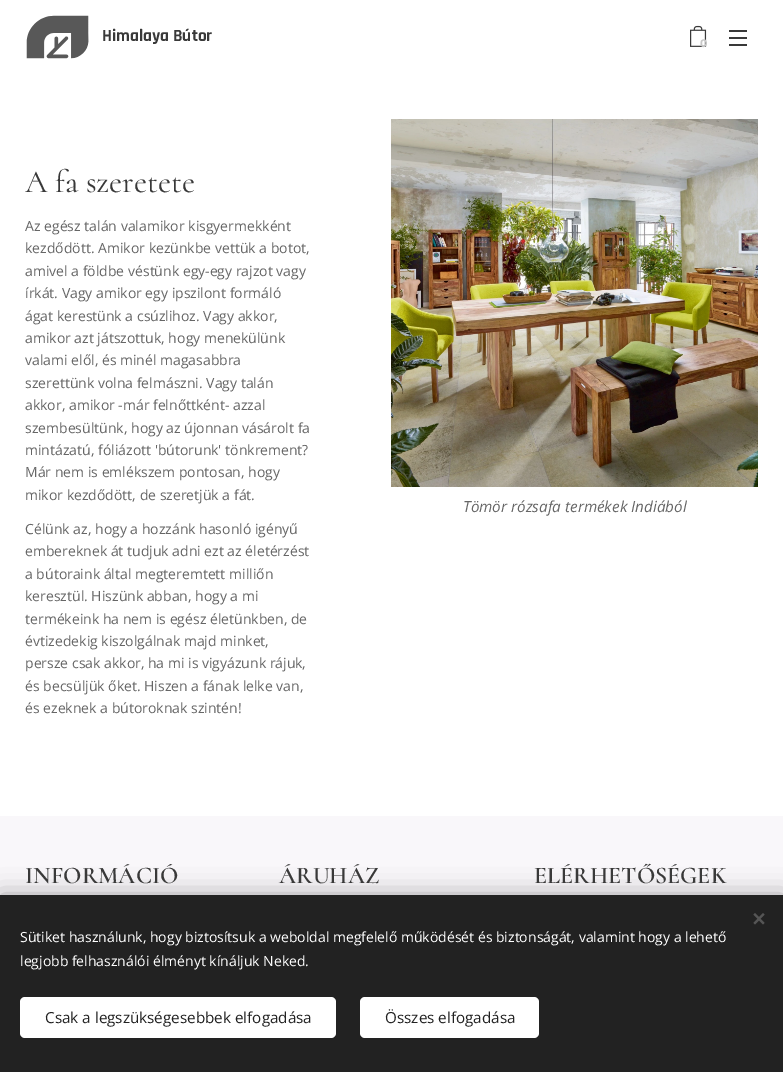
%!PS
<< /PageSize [783 1072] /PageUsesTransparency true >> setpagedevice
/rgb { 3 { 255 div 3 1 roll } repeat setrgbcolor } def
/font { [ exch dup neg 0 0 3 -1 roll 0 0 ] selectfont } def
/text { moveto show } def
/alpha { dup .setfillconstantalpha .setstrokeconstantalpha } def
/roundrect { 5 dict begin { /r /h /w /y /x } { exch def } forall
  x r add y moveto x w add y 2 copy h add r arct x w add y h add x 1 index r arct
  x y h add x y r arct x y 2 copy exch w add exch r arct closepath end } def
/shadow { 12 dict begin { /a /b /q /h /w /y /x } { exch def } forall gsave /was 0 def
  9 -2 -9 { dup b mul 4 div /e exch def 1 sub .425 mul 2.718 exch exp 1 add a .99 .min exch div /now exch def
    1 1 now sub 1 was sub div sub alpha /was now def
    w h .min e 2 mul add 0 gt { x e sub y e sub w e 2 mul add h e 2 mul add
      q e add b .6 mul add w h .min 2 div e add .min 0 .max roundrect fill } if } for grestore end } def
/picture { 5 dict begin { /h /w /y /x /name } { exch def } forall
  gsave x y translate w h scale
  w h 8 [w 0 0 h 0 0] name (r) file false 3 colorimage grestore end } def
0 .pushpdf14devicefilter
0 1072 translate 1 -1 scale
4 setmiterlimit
255 255 255 rgb
0 0 783 1072 rectfill
(img_01.rgb) 26 15 63 44 picture
(img_02.rgb) 690 25 17 22 picture
57 57 57 rgb
729 37 18 2 rectfill
729 30 18 2 rectfill
729 44 18 2 rectfill
(img_03.rgb) 391 119 367 368 picture
249 247 250 rgb
0 816 783 79 rectfill
0 0 0 rgb
0 895 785 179 0 12.5 0.33 shadow
34 34 34 rgb
0 895 783 177 rectfill
85 85 85 rgb
753.5 923 moveto 9.5 -10 rlineto 1.5 1.5 rlineto -9.5 10 rlineto closepath fill
755 913 moveto 9.5 10 rlineto -1.5 1.5 rlineto -9.5 -10 rlineto closepath fill
255 255 255 rgb
20 997 316 41 5 roundrect fill
360 997 179 41 5 roundrect fill
/Rajdhani-Bold 17.25 font
57 57 57 rgb
(Himalaya Bútor) 102 41 text
/Montserrat-Bold 11 font
199 199 199 rgb
(0) 700 47 text
/Cormorant-Regular 32 font
57 57 57 rgb
(A fa szeretete) 25 192 text
/OpenSans-Regular 14 font
102 102 102 rgb
(Az egész talán valamikor kisgyermekként) 25 231 text
(kezdődött. Amikor kezünkbe vettük a botot,) 25 253 text
(amivel a földbe véstünk egy-egy rajzot vagy) 25 276 text
(írkát. Vagy amikor egy ipszilont formáló) 25 298 text
(ágat kerestünk a csúzlihoz. Vagy akkor,) 25 321 text
(amikor azt játszottuk, hogy menekülünk) 25 343 text
(valami elől, és minél magasabbra) 25 365 text
(szerettünk volna felmászni. Vagy talán) 25 388 text
(akkor, amikor -már felnőttként- azzal) 25 410 text
(szembesültünk, hogy az újonnan vásárolt fa) 25 433 text
(mintázatú, fóliázott 'bútorunk' tönkrement?) 25 455 text
(Már nem is emlékszem pontosan, hogy) 25 477 text
(mikor kezdődött, de szeretjük a fát.) 25 500 text
(Célünk az, hogy a hozzánk hasonló igényű) 25 534 text
(embereknek át tudjuk adni ezt az életérzést) 25 556 text
(a bútoraink által megteremtett milliőn) 25 579 text
(keresztül. Hiszünk abban, hogy a mi) 25 601 text
(termékeink ha nem is egész életünkben, de) 25 624 text
(évtizedekig kiszolgálnak majd minket,) 25 646 text
(persze csak akkor, ha mi is vigyázunk rájuk,) 25 668 text
(és becsüljük őket. Hiszen a fának lelke van,) 25 691 text
(és ezeknek a bútoroknak szintén!) 25 713 text
/OpenSans-Italic 15.25 font
(Tömör rózsafa termékek Indiából) 463 512 text
/Cormorant-SemiBold 24 font
57 57 57 rgb
(INFORMÁCIÓ) 25 883 text
(ÁRUHÁZ) 279 883 text
(ELÉRHETŐSÉGEK) 534 883 text
/OpenSans-Regular 14 font
255 255 255 rgb
(Sütiket használunk, hogy biztosítsuk a weboldal megfelelő működését és biztonságát, valamint hogy a lehető) 20 942 text
(legjobb felhasználói élményt kínáljuk Neked.) 20 966 text
/OpenSans-Regular 15.25 font
34 34 34 rgb
(Csak a legszükségesebbek elfogadása) 45 1023 text
(Összes elfogadása) 385 1023 text
.poppdf14devicefilter showpage
